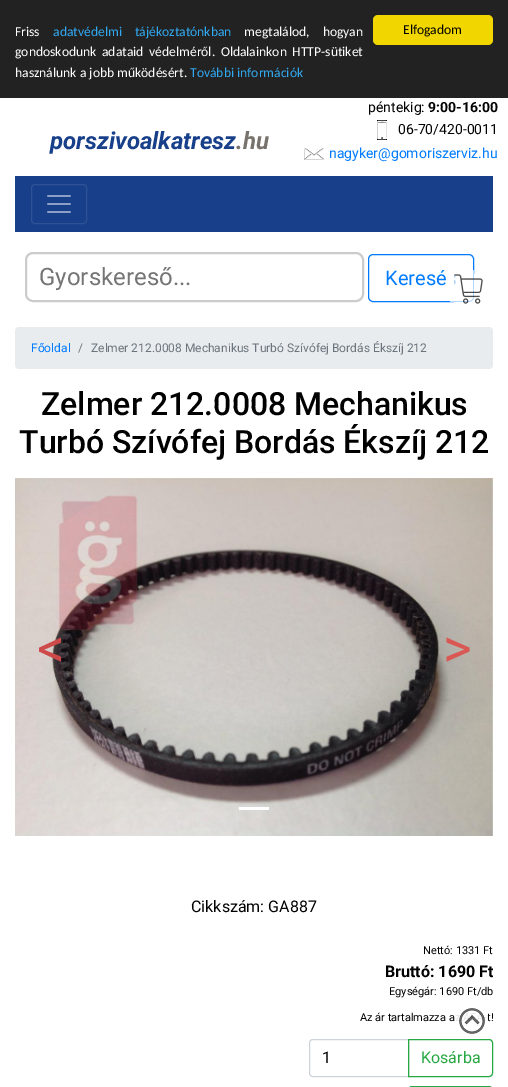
%!PS
<< /PageSize [508 1087] /PageUsesTransparency true >> setpagedevice
/rgb { 3 { 255 div 3 1 roll } repeat setrgbcolor } def
/font { [ exch dup neg 0 0 3 -1 roll 0 0 ] selectfont } def
/text { moveto show } def
/alpha { dup .setfillconstantalpha .setstrokeconstantalpha } def
/roundrect { 5 dict begin { /r /h /w /y /x } { exch def } forall
  x r add y moveto x w add y 2 copy h add r arct x w add y h add x 1 index r arct
  x y h add x y r arct x y 2 copy exch w add exch r arct closepath end } def
/picture { 5 dict begin { /h /w /y /x /name } { exch def } forall
  gsave x y translate w h scale
  w h 8 [w 0 0 h 0 0] name (r) file false 3 colorimage grestore end } def
0 .pushpdf14devicefilter
0 1087 translate 1 -1 scale
4 setmiterlimit
255 255 255 rgb
0 0 508 1087 rectfill
34 34 34 rgb
0 0 508 98 rectfill
241 214 0 rgb
373 15 120 30 5 roundrect fill
(img_01.rgb) 377 120 10 20 picture
(img_02.rgb) 304 148 20 12 picture
24 63 138 rgb
15 176 478 56 rectfill
47 82 150 rgb
31.5 184.5 55 39 3.5 roundrect stroke
(img_03.rgb) 47 195 24 18 picture
204 204 204 rgb
2 setlinewidth
26 253 337 48 7 roundrect stroke
0 123 255 rgb
1 setlinewidth
368.5 254.5 105 47 4.5 roundrect stroke
0.7 alpha
255 255 255 rgb
450 270 24 32 rectfill
1 alpha
(img_04.rgb) 454 274 29 30 picture
233 236 239 rgb
15 327 478 42 4 roundrect fill
(img_05.rgb) 15 478 478 358 picture
255 255 255 rgb
239 807 30 3 rectfill
206 212 218 rgb
313 1039.5 moveto 95.5 0 rlineto 0 37 rlineto -95.5 0 rlineto -2 0 -3.5 -1.5 -3.5 -3.5 rcurveto 0 -30 rlineto 0 -2 1.5 -3.5 3.5 -3.5 rcurveto closepath stroke
40 167 69 rgb
408.5 1039.5 moveto 80.5 0 rlineto 2 0 3.5 1.5 3.5 3.5 rcurveto 0 30 rlineto 0 2 -1.5 3.5 -3.5 3.5 rcurveto -80.5 0 rlineto closepath stroke
408 1086 85 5 4 roundrect fill
/Carlito-Regular 13.6 font
255 255 255 rgb
(Friss) 15 36 text
49 168 240 rgb
53 36 moveto 10 0 32 (adatvédelmi tájékoztatónkban) widthshow
255 255 255 rgb
244 36 moveto 10 0 32 (megtalálod, hogyan) widthshow
15 56 moveto 2.5 0 32 (gondoskodunk adataid védelméről. Oldalainkon HTTP-sütiket) widthshow
(használunk a jobb működésért.) 15 77 text
49 168 240 rgb
(További információk) 190 77 text
0 0 0 rgb
(Elfogadom) 403 34 text
/Roboto-BoldItalic 24 font
24 63 138 rgb
(porszivoalkatresz) 50 149 text
119 114 108 rgb
(.hu) 236 149 text
/Roboto-Regular 14 font
0 0 0 rgb
(péntekig:) 368 112 text
/Roboto-Bold 14 font
(9:00-16:00) 428 112 text
/Roboto-Regular 14 font
(06-70/420-0011) 398 134 text
0 123 255 rgb
(nagyker@gomoriszerviz.hu) 329 158 text
/Roboto-Regular 24 font
117 117 117 rgb
(Gyorskereső...) 39 285 text
/Roboto-Regular 20 font
0 123 255 rgb
(Keresé) 385 285 text
/Roboto-Regular 12 font
(Főoldal) 31 352 text
108 117 125 rgb
(/) 78 352 text
(Zelmer 212.0008 Mechanikus Turbó Szívófej Bordás Ékszíj 212) 91 352 text
/Roboto-Medium 32 font
0 0 0 rgb
(Zelmer 212.0008 Mechanikus) 41 415 text
(Turbó Szívófej Bordás Ékszíj 212) 19 453 text
/Roboto-Regular 55 font
206 74 74 rgb
(<) 37 667 text
218 88 84 rgb
(>) 443 667 text
/Roboto-Regular 16 font
0 0 0 rgb
(Cikkszám: GA887) 191 912 text
/Roboto-Regular 11 font
(Nettó: 1331 Ft) 423 954 text
/Roboto-Bold 16 font
(Bruttó: 1690 Ft) 385 977 text
/Roboto-Regular 11 font
(Egységár: 1690 Ft/db) 389 995 text
(Az ár tartalmazza a) 360 1021 text
(t!) 487 1021 text
/Roboto-Regular 16 font
(1) 322 1063 text
40 167 69 rgb
(Kosárba) 421 1063 text
(img_06.rgb) 456 1008 32 26 picture
.poppdf14devicefilter showpage
